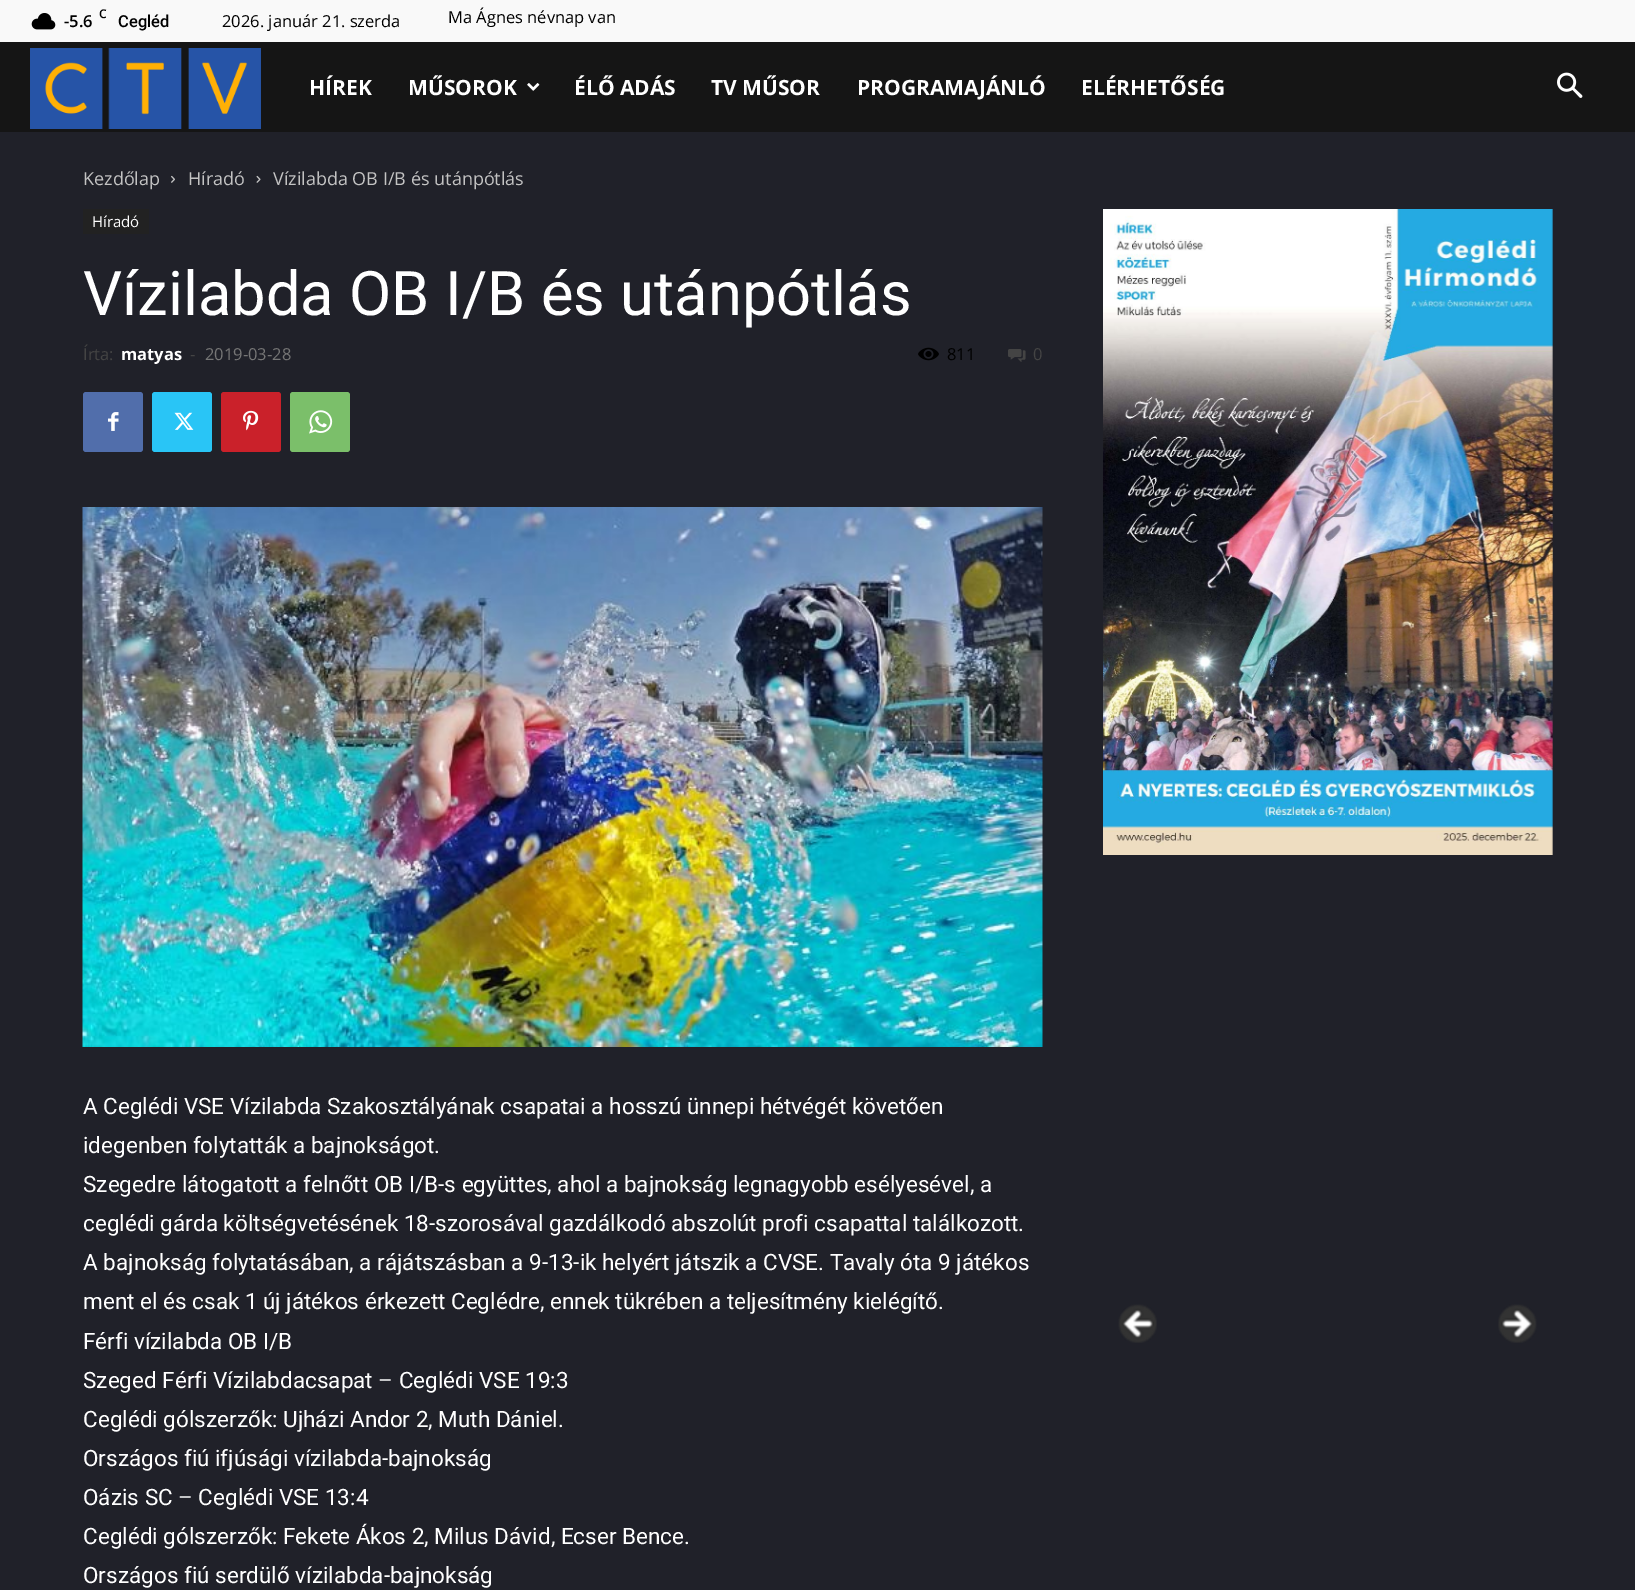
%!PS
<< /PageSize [1635 1590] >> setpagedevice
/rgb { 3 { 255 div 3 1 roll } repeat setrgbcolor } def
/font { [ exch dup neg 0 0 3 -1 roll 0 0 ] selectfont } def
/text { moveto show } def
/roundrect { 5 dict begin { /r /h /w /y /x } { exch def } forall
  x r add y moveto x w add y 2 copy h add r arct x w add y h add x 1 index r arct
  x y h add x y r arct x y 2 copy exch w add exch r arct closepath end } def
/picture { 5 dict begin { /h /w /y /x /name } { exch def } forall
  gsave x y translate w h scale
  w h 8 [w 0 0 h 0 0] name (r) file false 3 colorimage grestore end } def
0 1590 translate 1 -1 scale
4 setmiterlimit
32 33 41 rgb
0 0 1635 1590 rectfill
249 249 249 rgb
0 0 1635 42 rectfill
(img_01.rgb) 31 13 25 17 picture
21 21 21 rgb
0 42 1635 90 rectfill
(img_02.rgb) 30 48 231 81 picture
(img_03.rgb) 527 83 13 8 picture
(img_04.rgb) 1557 72 26 26 picture
(img_05.rgb) 171 175 4 8 picture
(img_06.rgb) 256 175 5 8 picture
34 34 34 rgb
83 209 66 25 rectfill
(img_07.rgb) 918 347 21 14 picture
(img_08.rgb) 1008 349 18 13 picture
81 110 171 rgb
83 392 60 60 3 roundrect fill
(img_09.rgb) 108 412 11 19 picture
41 197 246 rgb
152 392 60 60 3 roundrect fill
(img_10.rgb) 174 412 20 18 picture
202 33 42 rgb
221 392 60 60 3 roundrect fill
(img_11.rgb) 243 410 16 21 picture
123 191 106 rgb
290 392 60 60 3 roundrect fill
(img_12.rgb) 309 410 24 24 picture
(img_13.rgb) 82 507 961 540 picture
(img_14.rgb) 1103 209 450 646 picture
(img_15.rgb) 1118 1304 39 39 picture
(img_16.rgb) 1498 1304 39 39 picture
/OpenSans-SemiBold 12 font
0 0 0 rgb
(C) 99 18 text
/OpenSans-SemiBold 16.5 font
(-5.6) 64 27 text
/Roboto-Medium 16.5 font
(Cegléd) 118 27 text
/OpenSans-Regular 16.5 font
(2026. január 21. szerda) 222 27 text
(Ma Ágnes névnap van) 448 23 text
/OpenSans-Bold 21 font
255 255 255 rgb
(HÍREK) 309 95 text
(MŰSOROK) 408 95 text
(ÉLŐ ADÁS) 574 95 text
(TV MŰSOR) 711 95 text
(PROGRAMAJÁNLÓ) 857 95 text
(ELÉRHETŐSÉG) 1081 95 text
/OpenSans-Regular 18 font
195 195 195 rgb
(Kezdőlap) 83 185 text
(Híradó) 188 185 text
(Vízilabda OB I/B és utánpótlás) 273 185 text
/OpenSans-Regular 15 font
255 255 255 rgb
(Híradó) 92 227 text
/Roboto-Regular 61.5 font
(Vízilabda OB I/B és utánpótlás) 83 315 text
/OpenSans-Regular 16.5 font
68 68 68 rgb
(Írta:) 83 360 text
/OpenSans-Bold 16.5 font
255 255 255 rgb
(matyas) 121 360 text
/OpenSans-Regular 16.5 font
68 68 68 rgb
(-) 190 360 text
118 118 118 rgb
(2019-03-28) 205 360 text
0 0 0 rgb
(811) 947 360 text
68 68 68 rgb
(0) 1033 360 text
/Roboto-Regular 22.5 font
255 255 255 rgb
(A Ceglédi VSE Vízilabda Szakosztályának csapatai a hosszú ünnepi hétvégét követően) 83 1114 text
(idegenben folytatták a bajnokságot.) 83 1153 text
(Szegedre látogatott a felnőtt OB I/B-s együttes, ahol a bajnokság legnagyobb esélyesével, a) 83 1192 text
(ceglédi gárda költségvetésének 18-szorosával gazdálkodó abszolút profi csapattal találkozott.) 83 1231 text
(A bajnokság folytatásában, a rájátszásban a 9-13-ik helyért játszik a CVSE. Tavaly óta 9 játékos) 83 1270 text
(ment el és csak 1 új játékos érkezett Ceglédre, ennek tükrében a teljesítmény kielégítő.) 83 1309 text
(Férfi vízilabda OB I/B) 83 1349 text
(Szeged Férfi Vízilabdacsapat – Ceglédi VSE 19:3) 83 1388 text
(Ceglédi gólszerzők: Ujházi Andor 2, Muth Dániel.) 83 1427 text
(Országos fiú ifjúsági vízilabda-bajnokság) 83 1466 text
(Oázis SC – Ceglédi VSE 13:4) 83 1505 text
(Ceglédi gólszerzők: Fekete Ákos 2, Milus Dávid, Ecser Bence.) 83 1544 text
(Országos fiú serdülő vízilabda-bajnokság) 83 1583 text
showpage
